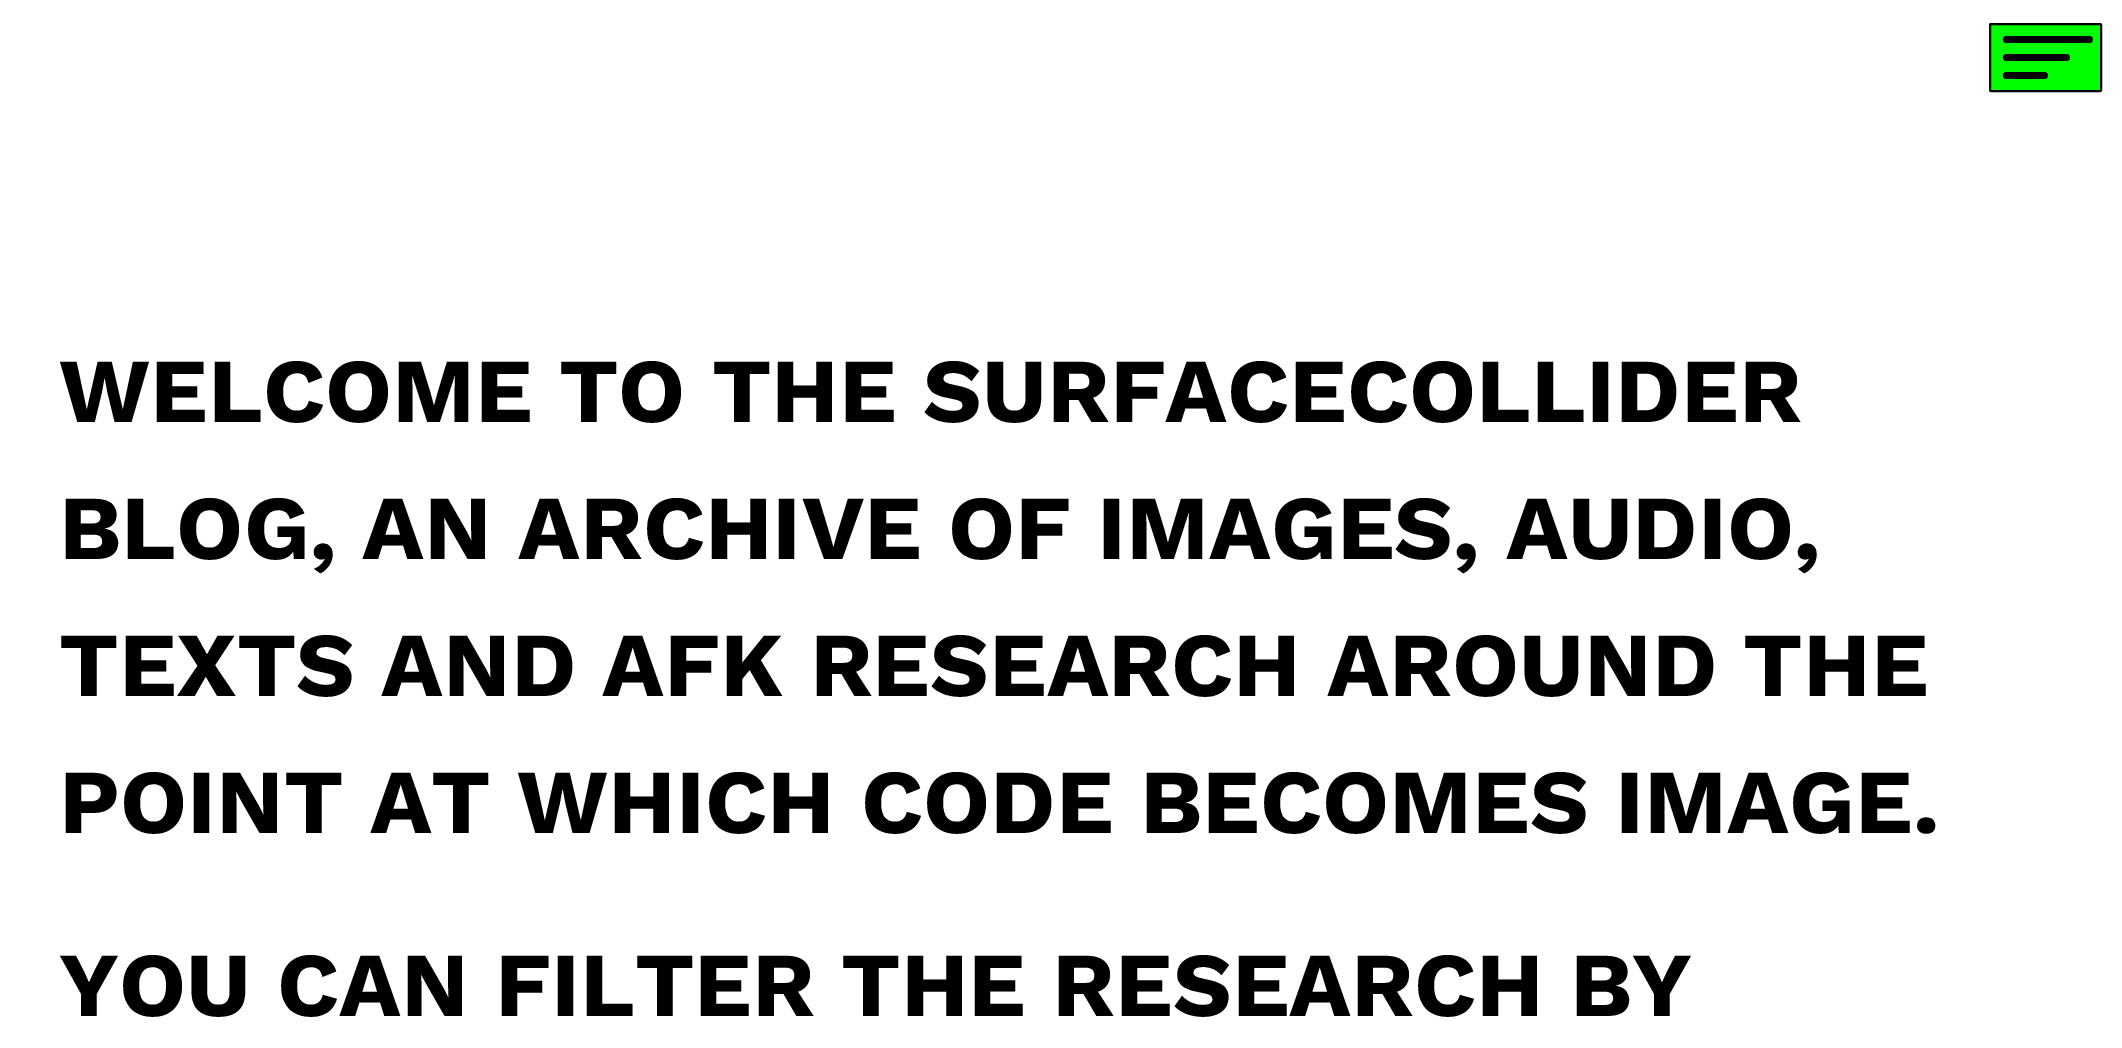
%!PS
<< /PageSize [2122 1048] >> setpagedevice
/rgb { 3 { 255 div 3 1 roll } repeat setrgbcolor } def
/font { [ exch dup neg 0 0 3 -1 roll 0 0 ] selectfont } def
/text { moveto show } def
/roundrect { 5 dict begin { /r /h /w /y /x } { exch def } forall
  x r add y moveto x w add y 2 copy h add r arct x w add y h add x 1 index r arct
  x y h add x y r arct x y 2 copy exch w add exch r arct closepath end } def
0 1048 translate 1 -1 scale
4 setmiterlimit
255 255 255 rgb
0 0 2122 1048 rectfill
0 255 0 rgb
1990 24 111 67 1 roundrect gsave fill grestore
0 0 0 rgb
2 setlinewidth
stroke
2003 36 90 7 3.5 roundrect fill
2003 54 67 7 3.5 roundrect fill
2003 72 45 7 3.5 roundrect fill
/WorkSans-Bold 91.3 font
(WELCOME TO THE SURFACECOLLIDER) 59 422 text
(BLOG, AN ARCHIVE OF IMAGES, AUDIO,) 59 559 text
(TEXTS AND AFK RESEARCH AROUND THE) 59 696 text
(POINT AT WHICH CODE BECOMES IMAGE.) 59 833 text
(YOU CAN FILTER THE RESEARCH BY) 59 1016 text
showpage
